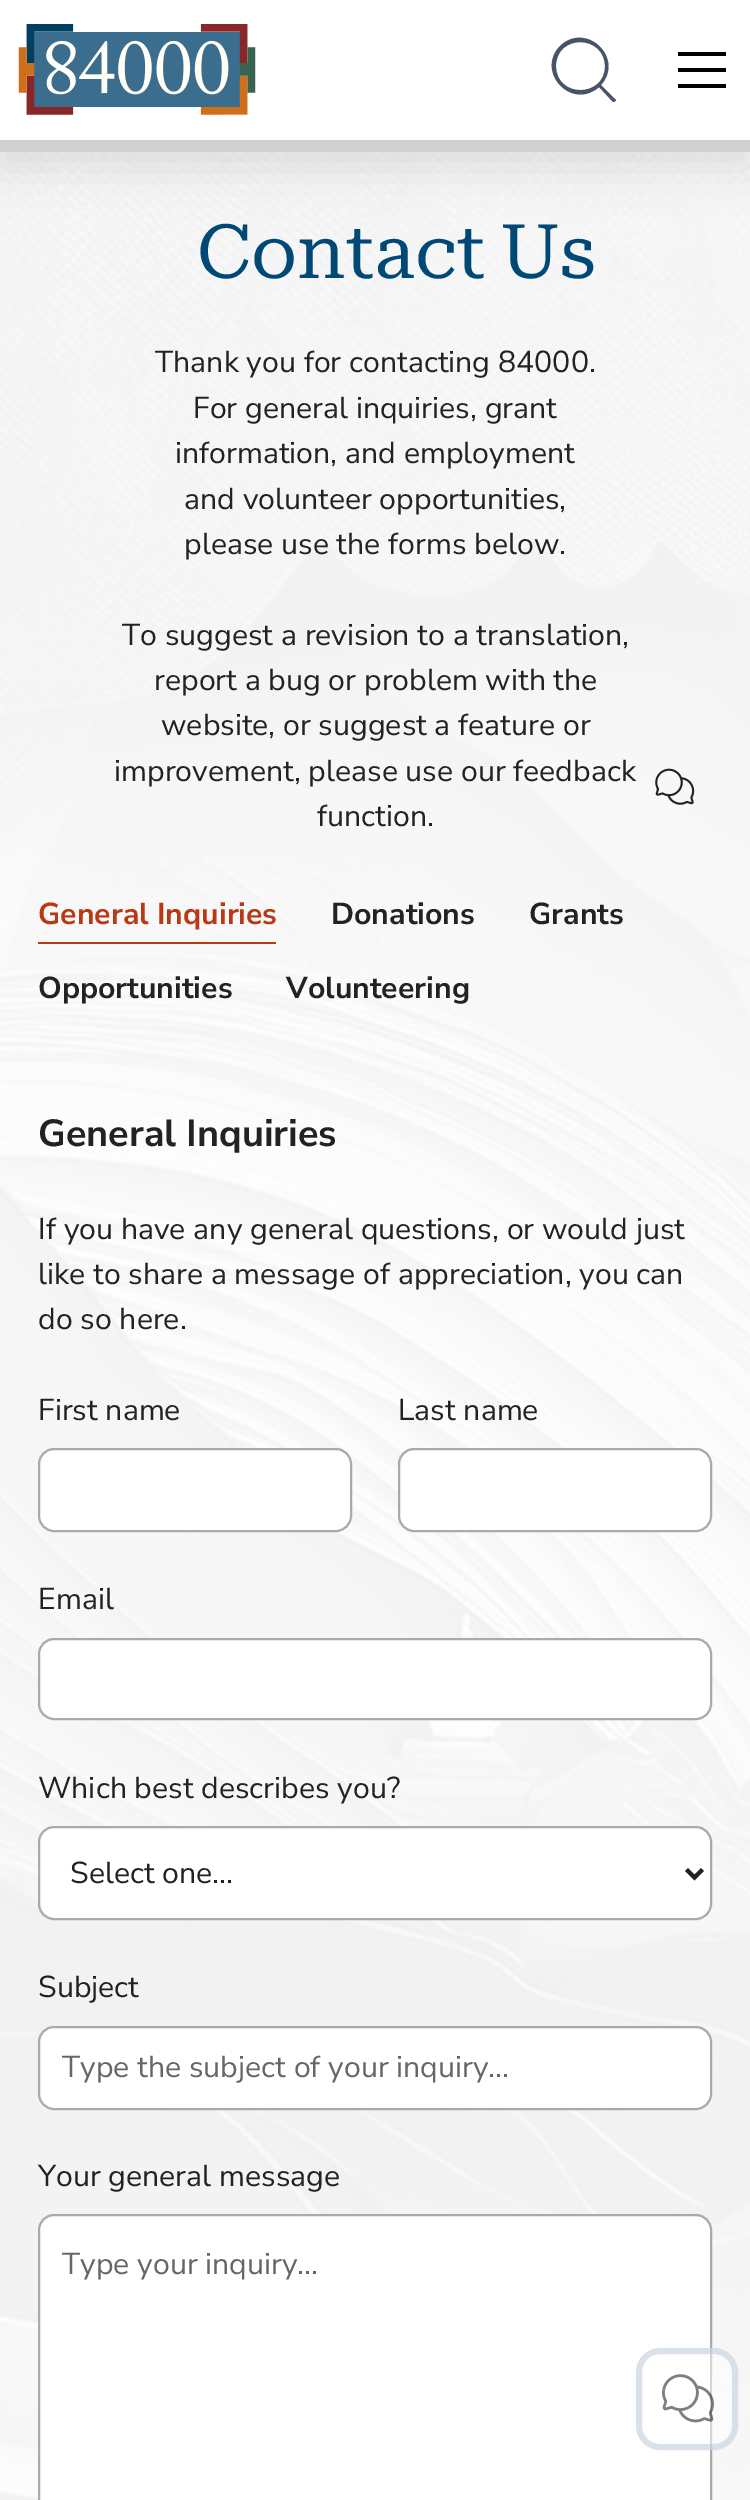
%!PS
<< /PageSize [750 2500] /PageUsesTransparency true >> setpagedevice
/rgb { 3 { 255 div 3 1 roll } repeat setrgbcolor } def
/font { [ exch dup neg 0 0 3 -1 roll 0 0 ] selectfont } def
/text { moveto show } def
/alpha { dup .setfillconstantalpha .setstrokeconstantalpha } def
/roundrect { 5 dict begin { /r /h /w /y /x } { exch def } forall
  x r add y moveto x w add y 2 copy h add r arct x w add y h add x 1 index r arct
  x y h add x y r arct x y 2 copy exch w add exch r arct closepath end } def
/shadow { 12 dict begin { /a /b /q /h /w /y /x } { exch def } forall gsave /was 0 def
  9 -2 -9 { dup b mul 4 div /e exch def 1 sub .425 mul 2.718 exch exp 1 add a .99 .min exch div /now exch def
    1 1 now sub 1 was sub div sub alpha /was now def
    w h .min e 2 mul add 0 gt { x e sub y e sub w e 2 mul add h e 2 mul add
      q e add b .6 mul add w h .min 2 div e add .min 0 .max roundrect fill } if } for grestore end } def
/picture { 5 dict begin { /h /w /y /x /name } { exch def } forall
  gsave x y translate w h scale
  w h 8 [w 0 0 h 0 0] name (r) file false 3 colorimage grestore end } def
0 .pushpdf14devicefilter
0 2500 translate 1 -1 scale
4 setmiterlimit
255 255 255 rgb
0 0 750 2500 rectfill
(img_02.rgb) 0 152 750 2348 picture
0 0 0 rgb
0 16 750 152 0 22 0.1 shadow
255 255 255 rgb
0 0 750 140 rectfill
209 209 209 rgb
0 140 750 12 rectfill
(img_01.rgb) 18 24 238 91 picture
71 84 103 rgb
615 99 moveto -14 -14 rlineto 24 -27 -15 -64 -41 -39 rcurveto -25 26 12 65 39 41 rcurveto 14 15 rlineto 2 0 4 -2 2 -3 rcurveto closepath 556 66 moveto 0 -32 49 -32 49 1 rcurveto -1 31 -49 31 -49 -1 rcurveto closepath fill
0 0 0 rgb
678 52 48 4 rectfill
678 68 48 4 rectfill
678 84 48 4 rectfill
(img_03.rgb) 655 768 40 37 picture
185 56 21 rgb
38 942 238 2 rectfill
255 255 255 rgb
39 1449 312 82 15 roundrect gsave fill grestore
170 170 170 rgb
2 setlinewidth
stroke
255 255 255 rgb
399 1449 312 82 15 roundrect gsave fill grestore
170 170 170 rgb
stroke
255 255 255 rgb
39 1639 672 80 15 roundrect gsave fill grestore
170 170 170 rgb
stroke
255 255 255 rgb
39 1827 672 92 15 roundrect gsave fill grestore
170 170 170 rgb
stroke
34 34 34 rgb
4 setlinewidth
686.5 1869.5 moveto 8 8 rlineto 8 -8 rlineto stroke
255 255 255 rgb
39 2027 672 82 15 roundrect gsave fill grestore
170 170 170 rgb
2 setlinewidth
stroke
255 255 255 rgb
39 2215 672 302 15 roundrect gsave fill grestore
170 170 170 rgb
stroke
0.5 alpha
255 255 255 rgb
636 2348 102 102 24 roundrect fill
180 198 214 rgb
6 setlinewidth
639 2351 96 96 21 roundrect stroke
1 alpha
(img_04.rgb) 662 2374 52 49 picture
/RobotoSerif-Regular 75.5 font
0 73 118 rgb
197 278 moveto -4 0 32 (Contact Us) widthshow
/NunitoSans-Regular 30.25 font
34 34 34 rgb
(Thank you for contacting 84000.) 155 372 text
(For general inquiries, grant) 193 418 text
(information, and employment) 175 463 text
(and volunteer opportunities,) 184 509 text
(please use the forms below.) 184 554 text
(To suggest a revision to a translation,) 122 645 text
(report a bug or problem with the) 154 690 text
(website, or suggest a feature or) 161 735 text
(improvement, please use our feedback) 114 781 text
(function.) 317 826 text
/NunitoSans-Bold 30.25 font
185 56 21 rgb
(General Inquiries) 38 924 text
34 34 34 rgb
(Donations) 331 924 text
(Grants) 529 924 text
(Opportunities) 38 998 text
(Volunteering) 286 998 text
/NunitoSans-Bold 37.75 font
(General Inquiries) 38 1146 text
/NunitoSans-Regular 30.25 font
(If you have any general questions, or would just) 38 1239 text
(like to share a message of appreciation, you can) 38 1284 text
(do so here.) 38 1329 text
(First name) 38 1420 text
(Last name) 398 1420 text
(Email) 38 1609 text
(Which best describes you?) 38 1798 text
(Select one...) 70 1883 text
(Subject) 38 1997 text
102 102 102 rgb
(Type the subject of your inquiry...) 62 2077 text
34 34 34 rgb
(Your general message) 38 2186 text
102 102 102 rgb
(Type your inquiry...) 62 2274 text
.poppdf14devicefilter showpage
